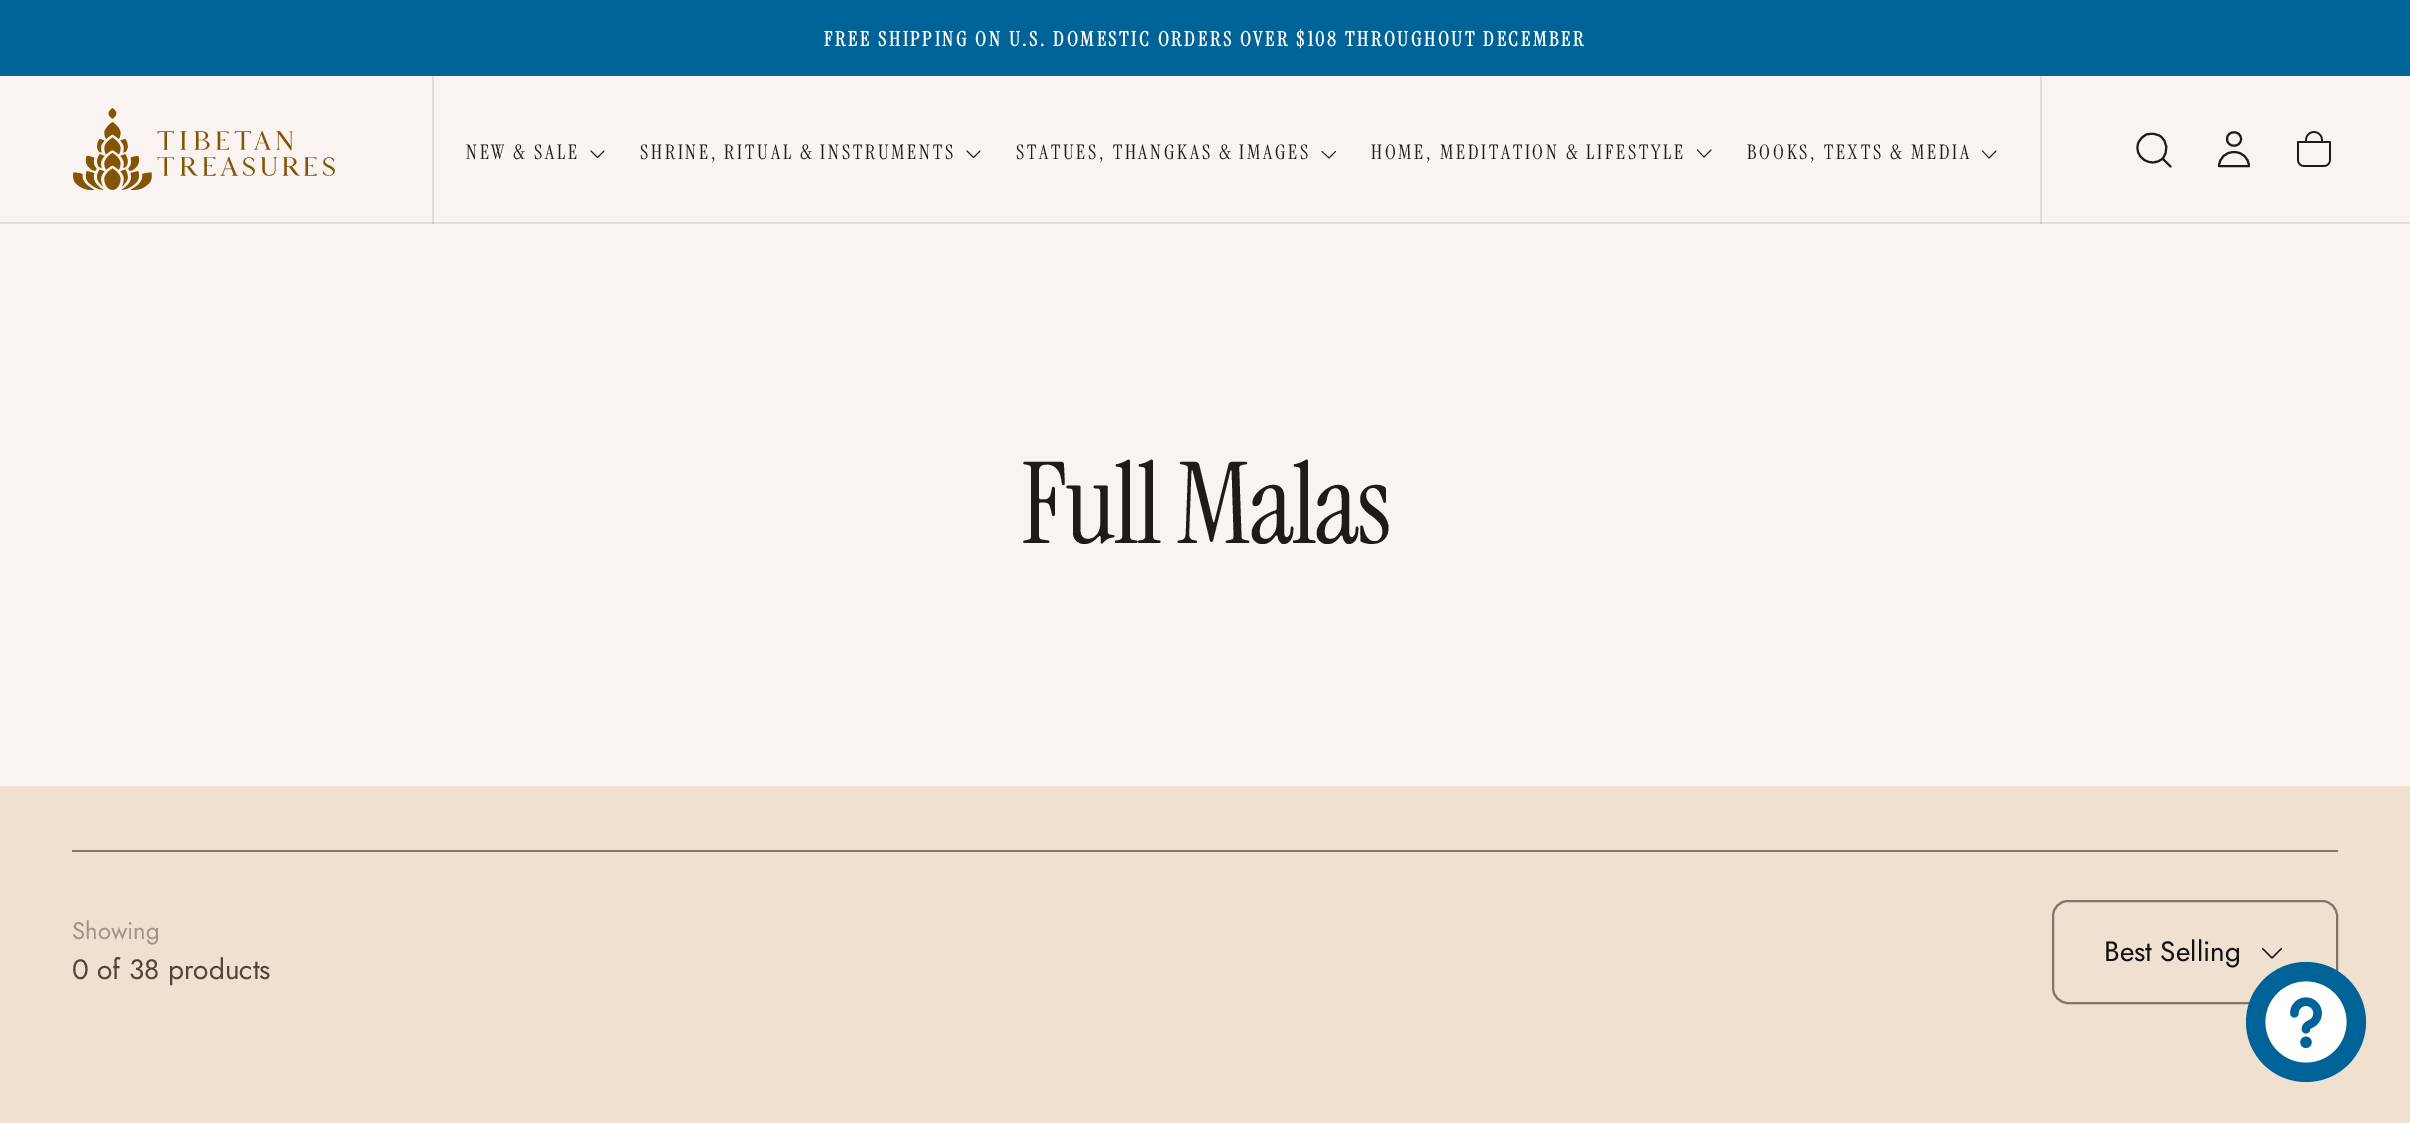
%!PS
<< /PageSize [2410 1123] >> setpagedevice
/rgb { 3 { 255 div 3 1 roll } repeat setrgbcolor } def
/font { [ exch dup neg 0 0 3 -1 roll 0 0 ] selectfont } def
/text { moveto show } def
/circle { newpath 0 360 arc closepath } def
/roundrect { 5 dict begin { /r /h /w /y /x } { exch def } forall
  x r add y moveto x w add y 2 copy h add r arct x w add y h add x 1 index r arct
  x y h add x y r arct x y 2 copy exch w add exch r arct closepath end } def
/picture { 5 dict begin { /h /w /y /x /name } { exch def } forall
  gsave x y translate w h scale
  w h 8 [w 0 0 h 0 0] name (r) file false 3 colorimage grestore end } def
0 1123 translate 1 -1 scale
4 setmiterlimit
240 224 208 rgb
0 0 2410 1123 rectfill
0 99 151 rgb
0 0 2410 76 rectfill
249 243 242 rgb
0 76 2410 146 rectfill
227 221 220 rgb
432 76 2 148 rectfill
2040 76 2 148 rectfill
0 222 2410 2 rectfill
207 202 200 rgb
432 222 2 2 rectfill
2040 222 2 2 rectfill
(img_01.rgb) 73 108 262 82 picture
31 27 22 rgb
0.8 setlinewidth
1 setlinecap
1 setlinejoin
604 151 moveto -6.5 6.5 rlineto -6.5 -6.5 rlineto stroke
980 151 moveto -6.5 6.5 rlineto -6.5 -6.5 rlineto stroke
1335.5 151.5 moveto -6.5 6.5 rlineto -7 -6.5 rlineto stroke
1711 150 moveto -7 7 rlineto -6.5 -7 rlineto stroke
1996 151 moveto -7 7 rlineto -6.5 -7 rlineto stroke
2 setlinewidth
2170.5 166.5 moveto -8 -8 rlineto 2162.5 158.5 moveto 6 -6.5 5 -17.5 -2.5 -22.5 rcurveto -4 -2.5 -9 -3 -13.5 -1.5 rcurveto -3.5 1.5 -6.5 4.5 -8 8 rcurveto -6 14.5 13 26.5 24 16 rcurveto closepath stroke
0 setlinecap
2241 139 moveto 0 9 -14 9 -14 0 rcurveto 0 -9 14 -9 14 0 rcurveto closepath 2234 152 moveto -8.5 0 -14.5 6 -15 14 rcurveto 30 0 rlineto -0.5 -8 -6.5 -14 -15 -14 rcurveto closepath stroke
(img_02.rgb) 2297 131 34 36 picture
249 243 242 rgb
0 224 2410 562 rectfill
130 117 104 rgb
72 850 2266 2 rectfill
0 setlinejoin
2053 901 284 102 15 roundrect stroke
17 17 17 rgb
1.2 setlinewidth
1 setlinecap
1 setlinejoin
2262.5 948.5 moveto 9.5 9.5 rlineto 9.5 -9.5 rlineto stroke
0 99 151 rgb
2306 1022 60 circle fill
(img_03.rgb) 2265 981 82 82 picture
/InstrumentSerif-Bold 20 font
255 255 255 rgb
824 46 moveto 2.8 0 (FREE SHIPPING ON U.S. DOMESTIC ORDERS OVER $108 THROUGHOUT DECEMBER) ashow
/InstrumentSerif-Regular 20 font
31 27 22 rgb
466 159 moveto 2.8 0 (NEW & SALE) ashow
640 159 moveto 2.8 0 (SHRINE, RITUAL & INSTRUMENTS) ashow
1016 159 moveto 2.8 0 (STATUES, THANGKAS & IMAGES) ashow
1371 159 moveto 2.8 0 (HOME, MEDITATION & LIFESTYLE) ashow
1747 159 moveto 2.8 0 (BOOKS, TEXTS & MEDIA) ashow
/InstrumentSerif-Regular 113 font
1021 543 moveto -2.25 0 (Full Malas) ashow
/Jost-Regular 24 font
160 147 133 rgb
(Showing) 72 939 text
/Jost-Regular 28 font
80 69 57 rgb
(0 of 38 products) 72 979 text
17 17 17 rgb
(Best Selling) 2104 961 text
showpage
